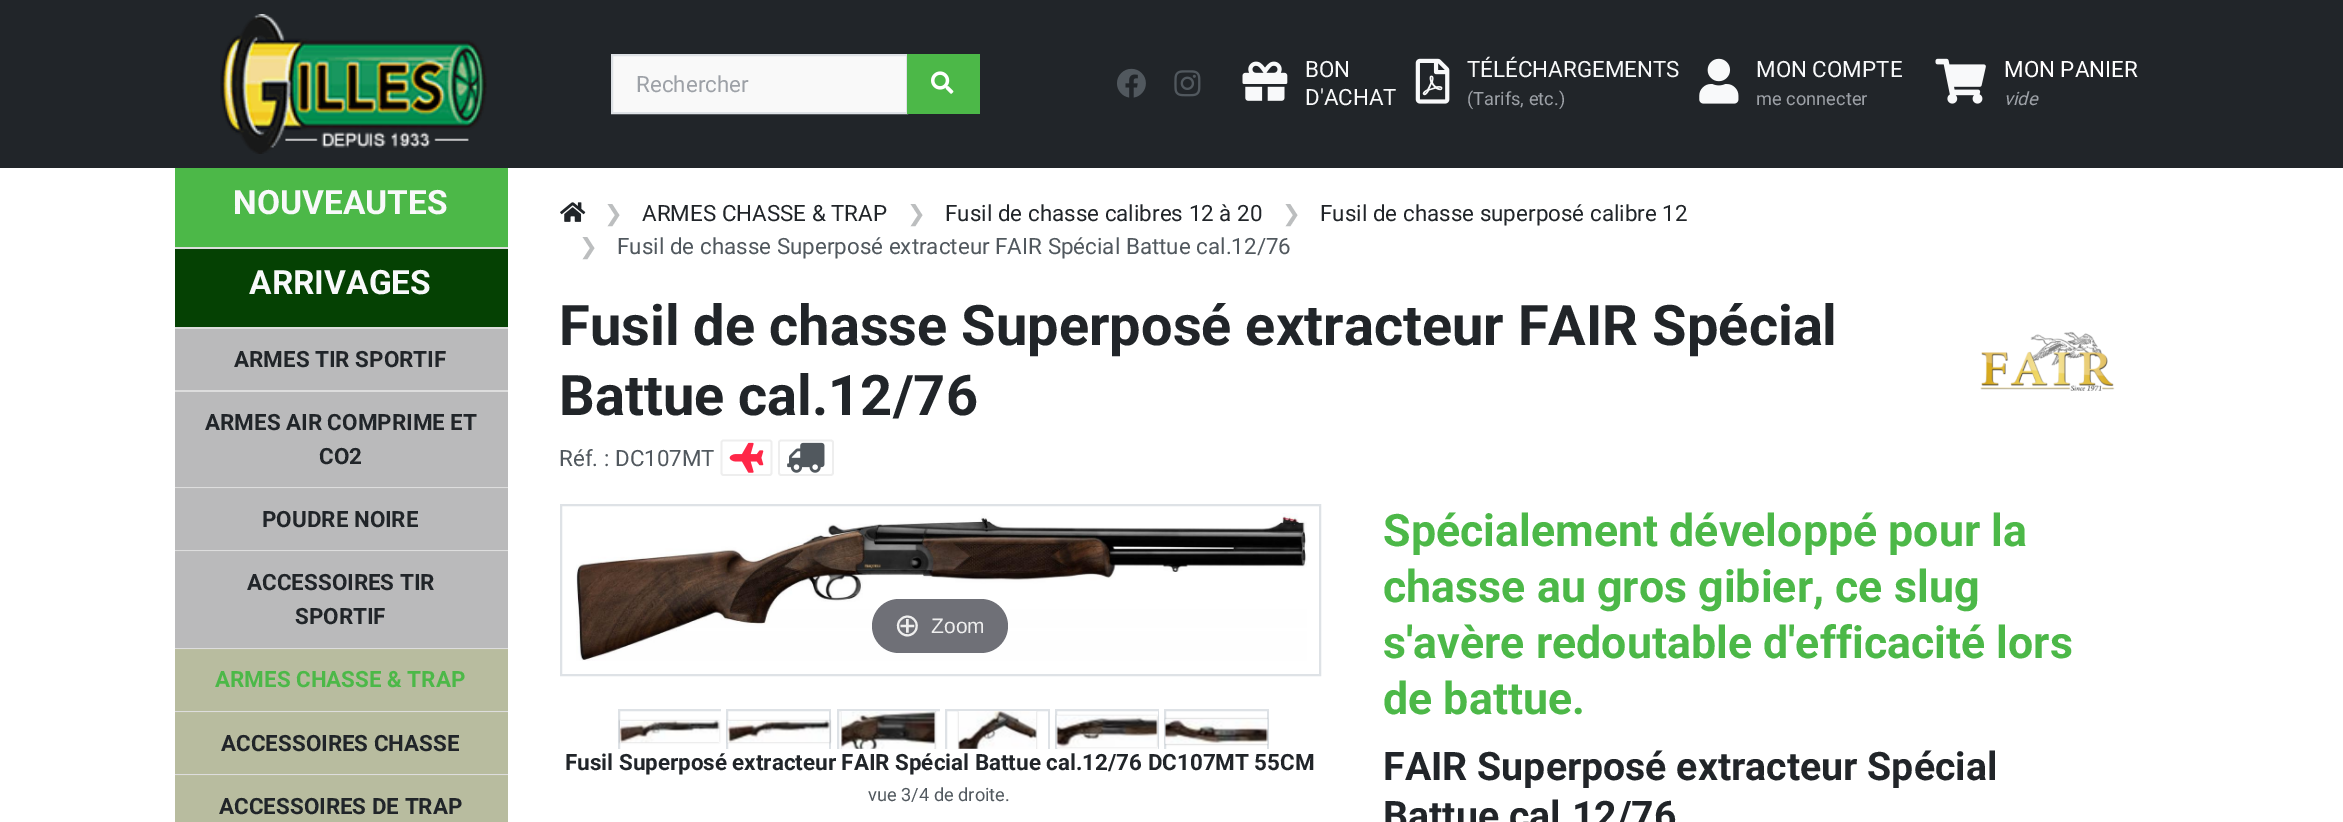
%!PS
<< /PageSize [2343 822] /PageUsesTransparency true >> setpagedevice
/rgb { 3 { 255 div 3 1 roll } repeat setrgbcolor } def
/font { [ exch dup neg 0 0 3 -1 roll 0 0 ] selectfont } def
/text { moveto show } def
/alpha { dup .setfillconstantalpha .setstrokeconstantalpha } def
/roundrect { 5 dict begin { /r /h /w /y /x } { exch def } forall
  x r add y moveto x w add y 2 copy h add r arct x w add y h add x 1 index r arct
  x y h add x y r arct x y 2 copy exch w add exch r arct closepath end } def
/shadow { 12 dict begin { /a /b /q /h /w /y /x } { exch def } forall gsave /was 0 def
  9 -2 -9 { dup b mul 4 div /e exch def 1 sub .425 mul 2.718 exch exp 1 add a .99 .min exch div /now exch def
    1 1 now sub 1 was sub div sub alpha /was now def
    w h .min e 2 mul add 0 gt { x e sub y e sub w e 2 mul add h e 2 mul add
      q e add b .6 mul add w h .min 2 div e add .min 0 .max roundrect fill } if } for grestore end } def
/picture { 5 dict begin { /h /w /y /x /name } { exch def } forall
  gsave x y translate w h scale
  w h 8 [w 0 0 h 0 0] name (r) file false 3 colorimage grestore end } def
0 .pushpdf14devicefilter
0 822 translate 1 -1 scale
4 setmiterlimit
255 255 255 rgb
0 0 2343 822 rectfill
33 37 41 rgb
0 0 2343 168 rectfill
(img_01.rgb) 220 14 267 140 picture
249 249 249 rgb
612 55 moveto 295 0 rlineto 0 58 rlineto -295 0 rlineto closepath gsave fill grestore
222 226 230 rgb
2 setlinewidth
stroke
76 184 72 rgb
907 54 73 60 rectfill
(img_02.rgb) 931 71 23 23 picture
(img_03.rgb) 1117 68 29 30 picture
(img_04.rgb) 1174 70 27 27 picture
(img_05.rgb) 1242 61 46 40 picture
(img_06.rgb) 1415 58 35 46 picture
(img_07.rgb) 1699 58 40 46 picture
(img_08.rgb) 1935 58 51 46 picture
184 188 159 rgb
175 776 333 46 rectfill
175 713 333 61 rectfill
175 650 333 61 rectfill
186 186 187 rgb
175 552 333 96 rectfill
175 489 333 61 rectfill
76 184 72 rgb
175 168 333 79 rectfill
221 221 221 rgb
175 247 333 2 rectfill
5 65 3 rgb
175 249 333 78 rectfill
221 221 221 rgb
175 327 333 2 rectfill
186 186 187 rgb
175 329 333 61 rectfill
221 221 221 rgb
175 390 333 2 rectfill
186 186 187 rgb
175 392 333 95 rectfill
221 221 221 rgb
175 487 333 1 rectfill
188 188 188 rgb
175 488 333 1 rectfill
221 221 221 rgb
175 550 333 1 rectfill
188 188 188 rgb
175 551 333 1 rectfill
221 221 221 rgb
175 648 333 1 rectfill
187 190 161 rgb
175 649 333 1 rectfill
221 221 221 rgb
175 711 333 1 rectfill
187 190 161 rgb
175 712 333 1 rectfill
221 221 221 rgb
175 774 333 1 rectfill
187 190 161 rgb
175 775 333 1 rectfill
(img_09.rgb) 560 202 26 20 picture
(img_10.rgb) 1980 331 135 60 picture
238 238 238 rgb
1.8 setlinewidth
769.5 440.5 moveto -46 0 rlineto -1 0 -2 1 -2 2 rcurveto 0 30.5 rlineto 0 1 1 2 2 2 rcurveto 46 0 rlineto 1 0 2 -1 2 -2 rcurveto 0 -30.5 rlineto 0 -1 -1 -2 -2 -2 rcurveto closepath stroke
(img_11.rgb) 729 442 35 31 picture
831 440.5 moveto -50 0 rlineto -1 0 -2 1 -2 2 rcurveto 0 30.5 rlineto 0 1 1 2 2 2 rcurveto 50 0 rlineto 1 0 2 -1 2 -2 rcurveto 0 -30.5 rlineto 0 -1 -1 -2 -2 -2 rcurveto closepath stroke
(img_12.rgb) 787 442 38 31 picture
222 226 230 rgb
2 setlinewidth
561 505 759 170 rectstroke
(img_13.rgb) 576 513 731 148 picture
111 112 119 rgb
872 599 136 54 27 roundrect fill
/Roboto-Regular 22.4 font
157 161 167 rgb
(Rechercher) 636 92 text
248 249 250 rgb
(BON) 1305 77 text
(D'ACHAT) 1305 105 text
(TÉLÉCHARGEMENTS) 1467 77 text
/Roboto-Regular 18.25 font
157 161 167 rgb
(\(Tarifs, etc.\)) 1467 105 text
/Roboto-Regular 22.4 font
248 249 250 rgb
(MON COMPTE) 1756 77 text
/Roboto-Regular 18.25 font
157 161 167 rgb
(me connecter) 1756 105 text
/Roboto-Regular 22.4 font
255 255 255 rgb
(MON PANIER) 2004 77 text
/Roboto-Italic 18.25 font
157 161 167 rgb
(vide) 2004 105 text
/Roboto-Bold 33.5 font
248 249 250 rgb
(NOUVEAUTES) 233 214 text
(ARRIVAGES) 249 294 text
/Roboto-Bold 22.4 font
33 37 41 rgb
(ARMES TIR SPORTIF) 234 367 text
(ARMES AIR COMPRIME ET) 205 430 text
(CO2) 319 464 text
(POUDRE NOIRE) 262 527 text
(ACCESSOIRES TIR) 247 590 text
(SPORTIF) 295 624 text
76 184 72 rgb
(ARMES CHASSE & TRAP) 215 687 text
33 37 41 rgb
(ACCESSOIRES CHASSE) 221 751 text
(ACCESSOIRES DE TRAP) 219 814 text
/DejaVuSans-Regular 22.4 font
188 190 191 rgb
(❯) 604 221 text
/Roboto-Regular 22.4 font
33 37 41 rgb
(ARMES CHASSE & TRAP) 642 221 text
/DejaVuSans-Regular 22.4 font
188 190 191 rgb
(❯) 907 221 text
/Roboto-Regular 22.4 font
33 37 41 rgb
(Fusil de chasse calibres 12 à 20) 945 221 text
/DejaVuSans-Regular 22.4 font
188 190 191 rgb
(❯) 1282 221 text
/Roboto-Regular 22.4 font
33 37 41 rgb
(Fusil de chasse superposé calibre 12) 1320 221 text
/DejaVuSans-Regular 22.4 font
188 190 191 rgb
(❯) 579 254 text
/Roboto-Regular 22.4 font
81 88 94 rgb
(Fusil de chasse Superposé extracteur FAIR Spécial Battue cal.12/76) 617 254 text
/Roboto-Bold 56 font
33 37 41 rgb
(Fusil de chasse Superposé extracteur FAIR Spécial) 559 345 text
(Battue cal.12/76) 559 415 text
/Roboto-Regular 22.4 font
81 88 94 rgb
(Réf. : DC107MT) 559 466 text
/DejaVuSans-Regular 32 font
238 238 238 rgb
(⊕) 894 636 text
/LiberationSans-Regular 21 font
(Zoom) 931 633 text
/Roboto-Bold 22.4 font
33 37 41 rgb
(Fusil Superposé extracteur FAIR Spécial Battue cal.12/76 DC107MT 55CM) 565 770 text
gsave
1159 704 110 45 rectclip
222 226 230 rgb
1165 710 103 43 rectstroke
grestore
gsave
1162 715 moveto 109 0 rlineto 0 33 rlineto -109 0 rlineto closepath 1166 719 moveto 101 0 rlineto 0 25 rlineto -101 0 rlineto closepath eoclip newpath
0 0 0 rgb
1166 719 101 25 0 1 0.3 shadow
grestore
(img_19.rgb) 1165 719 103 25 picture
gsave
1050 704 109 45 rectclip
222 226 230 rgb
1056 710 103 43 rectstroke
grestore
gsave
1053 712 moveto 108 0 rlineto 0 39 rlineto -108 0 rlineto closepath 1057 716 moveto 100 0 rlineto 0 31 rlineto -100 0 rlineto closepath eoclip newpath
0 0 0 rgb
1057 716 100 31 0 1 0.3 shadow
grestore
(img_18.rgb) 1056 715 102 33 picture
gsave
940 704 110 45 rectclip
222 226 230 rgb
946 710 103 43 rectstroke
grestore
gsave
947 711 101 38 rectclip
0 0 0 rgb
959 711 77 42 0 1 0.3 shadow
grestore
(img_17.rgb) 958 711 79 38 picture
gsave
831 704 109 45 rectclip
222 226 230 rgb
838 710 103 43 rectstroke
grestore
gsave
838 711 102 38 rectclip
0 0 0 rgb
842 711 93 42 0 1 0.3 shadow
grestore
(img_16.rgb) 841 711 94 38 picture
gsave
721 704 110 45 rectclip
222 226 230 rgb
727 710 103 43 rectstroke
grestore
gsave
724 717 moveto 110 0 rlineto 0 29 rlineto -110 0 rlineto closepath 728 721 moveto 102 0 rlineto 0 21 rlineto -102 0 rlineto closepath eoclip newpath
0 0 0 rgb
728 721 102 21 0 1 0.3 shadow
grestore
(img_15.rgb) 727 720 103 23 picture
gsave
613 704 108 45 rectclip
222 226 230 rgb
619 710 103 43 rectstroke
grestore
0 0 0 rgb
620 721 99 21 0 1 0.3 shadow
(img_14.rgb) 620 720 100 23 picture
/Roboto-Regular 18.25 font
81 88 94 rgb
(vue 3/4 de droite.) 868 801 text
/Roboto-Bold 44.75 font
76 184 72 rgb
(Spécialement développé pour la) 1383 546 text
(chasse au gros gibier, ce slug) 1383 602 text
(s'avère redoutable d'efficacité lors) 1383 658 text
(de battue.) 1383 714 text
/Roboto-Bold 39.25 font
33 37 41 rgb
(FAIR Superposé extracteur Spécial) 1383 780 text
(Battue cal.12/76) 1383 829 text
.poppdf14devicefilter showpage
